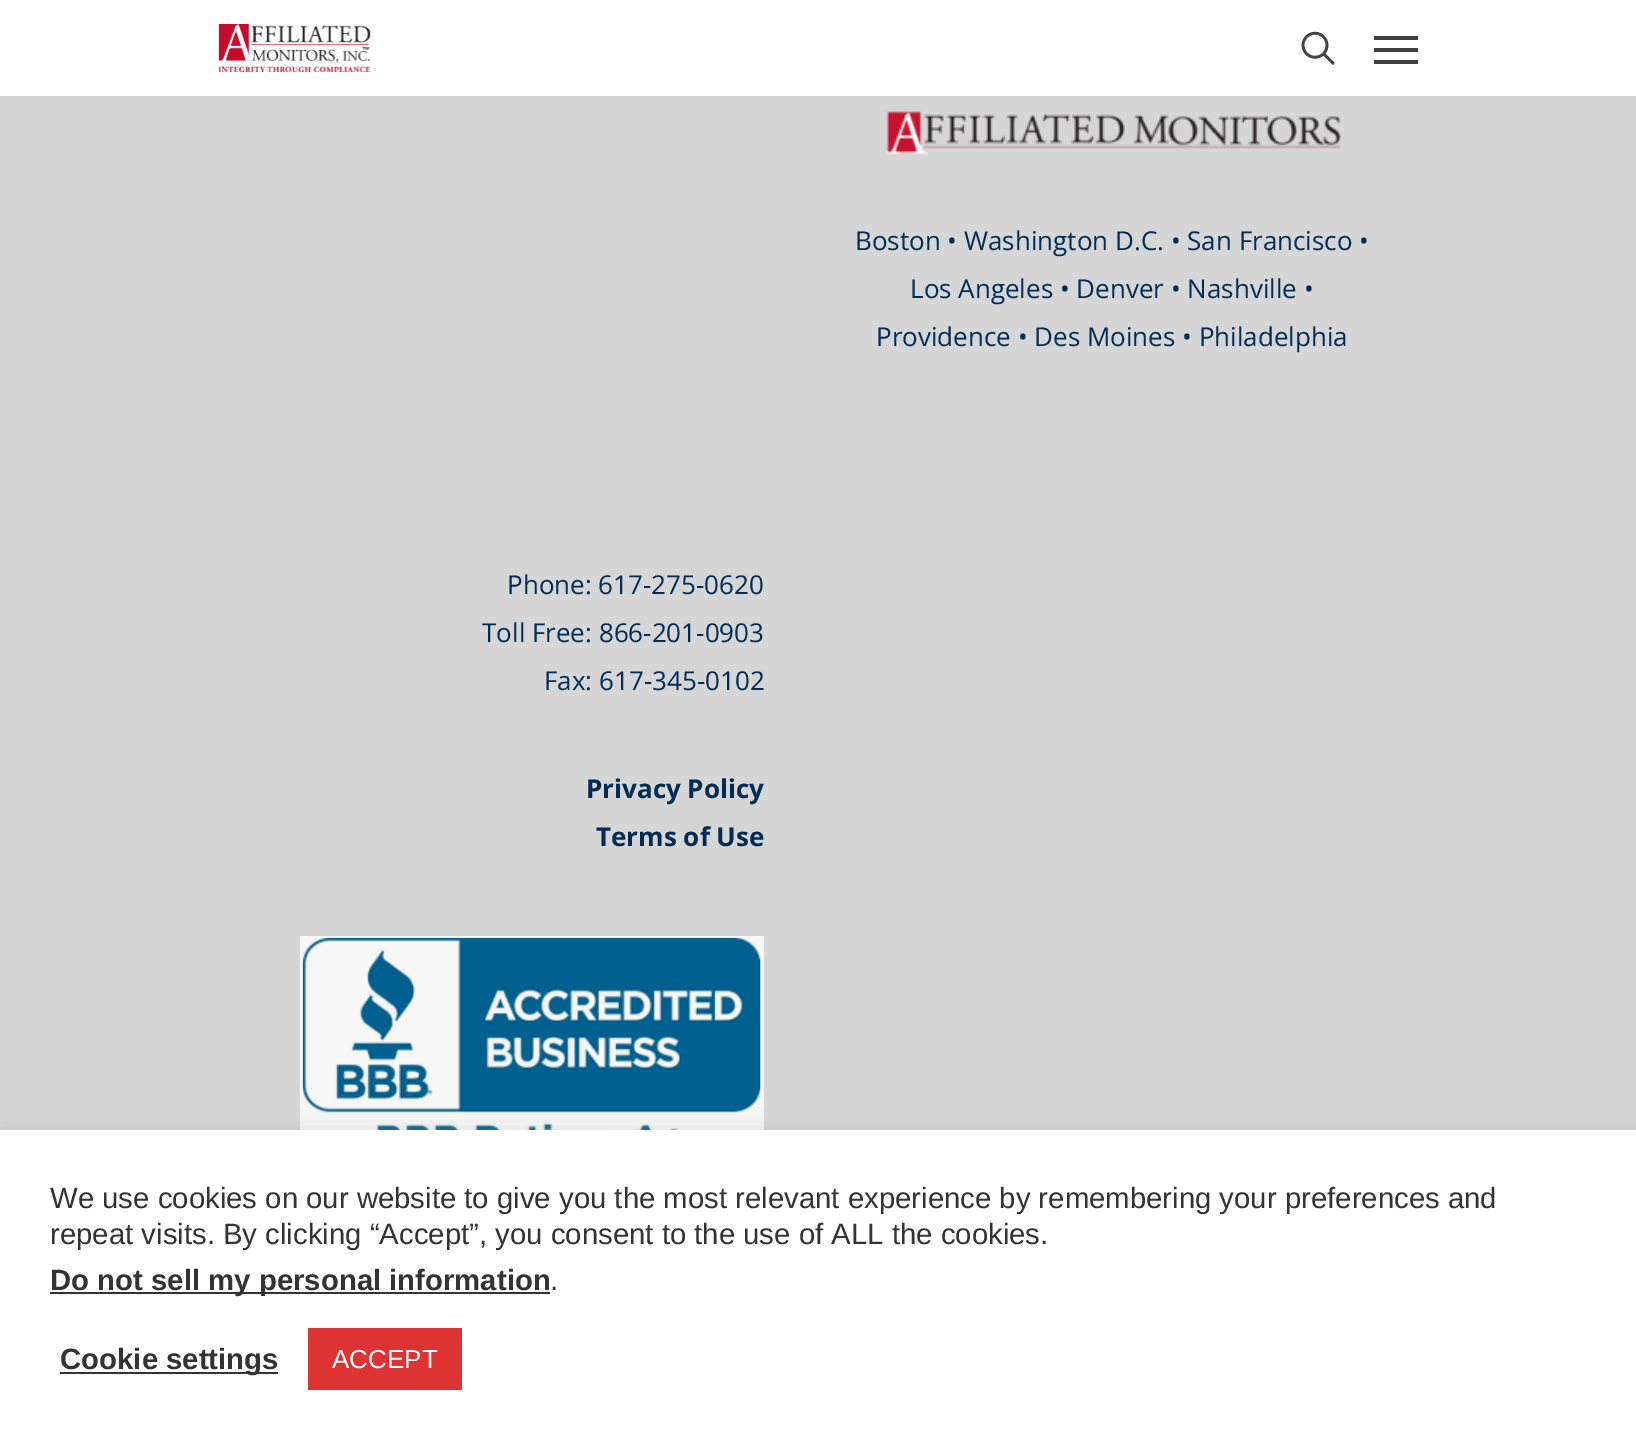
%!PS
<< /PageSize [1636 1449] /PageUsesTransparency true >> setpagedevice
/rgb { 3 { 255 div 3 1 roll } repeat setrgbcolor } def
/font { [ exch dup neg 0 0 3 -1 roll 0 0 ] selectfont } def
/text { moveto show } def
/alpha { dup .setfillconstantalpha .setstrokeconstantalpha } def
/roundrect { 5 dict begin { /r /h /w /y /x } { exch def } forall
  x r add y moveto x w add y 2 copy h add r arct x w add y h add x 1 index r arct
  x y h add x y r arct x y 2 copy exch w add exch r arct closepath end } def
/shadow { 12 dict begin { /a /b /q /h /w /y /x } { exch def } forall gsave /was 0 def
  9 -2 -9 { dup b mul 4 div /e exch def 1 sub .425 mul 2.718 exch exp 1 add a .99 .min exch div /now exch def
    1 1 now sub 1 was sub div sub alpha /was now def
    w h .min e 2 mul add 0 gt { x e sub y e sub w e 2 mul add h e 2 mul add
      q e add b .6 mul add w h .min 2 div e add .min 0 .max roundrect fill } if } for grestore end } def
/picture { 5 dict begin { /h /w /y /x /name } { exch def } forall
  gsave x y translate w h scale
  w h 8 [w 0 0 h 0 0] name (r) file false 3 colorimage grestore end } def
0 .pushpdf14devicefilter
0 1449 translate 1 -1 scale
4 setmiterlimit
214 214 214 rgb
0 0 1636 1449 rectfill
255 255 255 rgb
0 0 1636 96 rectfill
(img_01.rgb) 218 24 153 48 picture
(img_02.rgb) 1301 31 34 34 picture
66 66 66 rgb
1374 36 44 4 rectfill
1374 60 44 4 rectfill
1374 48 44 4 rectfill
(img_03.rgb) 886 111 455 45 picture
(img_04.rgb) 300 936 464 194 picture
172 171 171 rgb
0 1128 1636 320 0 10 0.3 shadow
255 255 255 rgb
0 1130 1636 319 rectfill
51 51 51 rgb
50 1292 500 2 rectfill
60 1372 218 2 rectfill
221 51 51 rgb
308 1328 154 62 rectfill
/OpenSans-Regular 26 font
0 44 86 rgb
(Boston • Washington D.C. • San Francisco •) 855 250 text
(Los Angeles • Denver • Nashville •) 910 298 text
(Providence • Des Moines • Philadelphia) 876 346 text
(Phone: 617-275-0620) 507 594 text
(Toll Free: 866-201-0903) 482 642 text
(Fax: 617-345-0102) 544 690 text
/OpenSans-Bold 26 font
(Privacy Policy) 586 798 text
(Terms of Use) 596 846 text
/LiberationSans-Regular 29.35 font
51 51 51 rgb
(We use cookies on our website to give you the most relevant experience by remembering your preferences and) 50 1208 text
(repeat visits. By clicking “Accept”, you consent to the use of ALL the cookies.) 50 1244 text
/LiberationSans-Bold 29.35 font
(Do not sell my personal information) 50 1290 text
/LiberationSans-Regular 29.35 font
(.) 550 1290 text
/LiberationSans-Bold 29.35 font
(Cookie settings) 60 1369 text
/LiberationSans-Regular 26 font
255 255 255 rgb
(ACCEPT) 332 1368 text
.poppdf14devicefilter showpage
